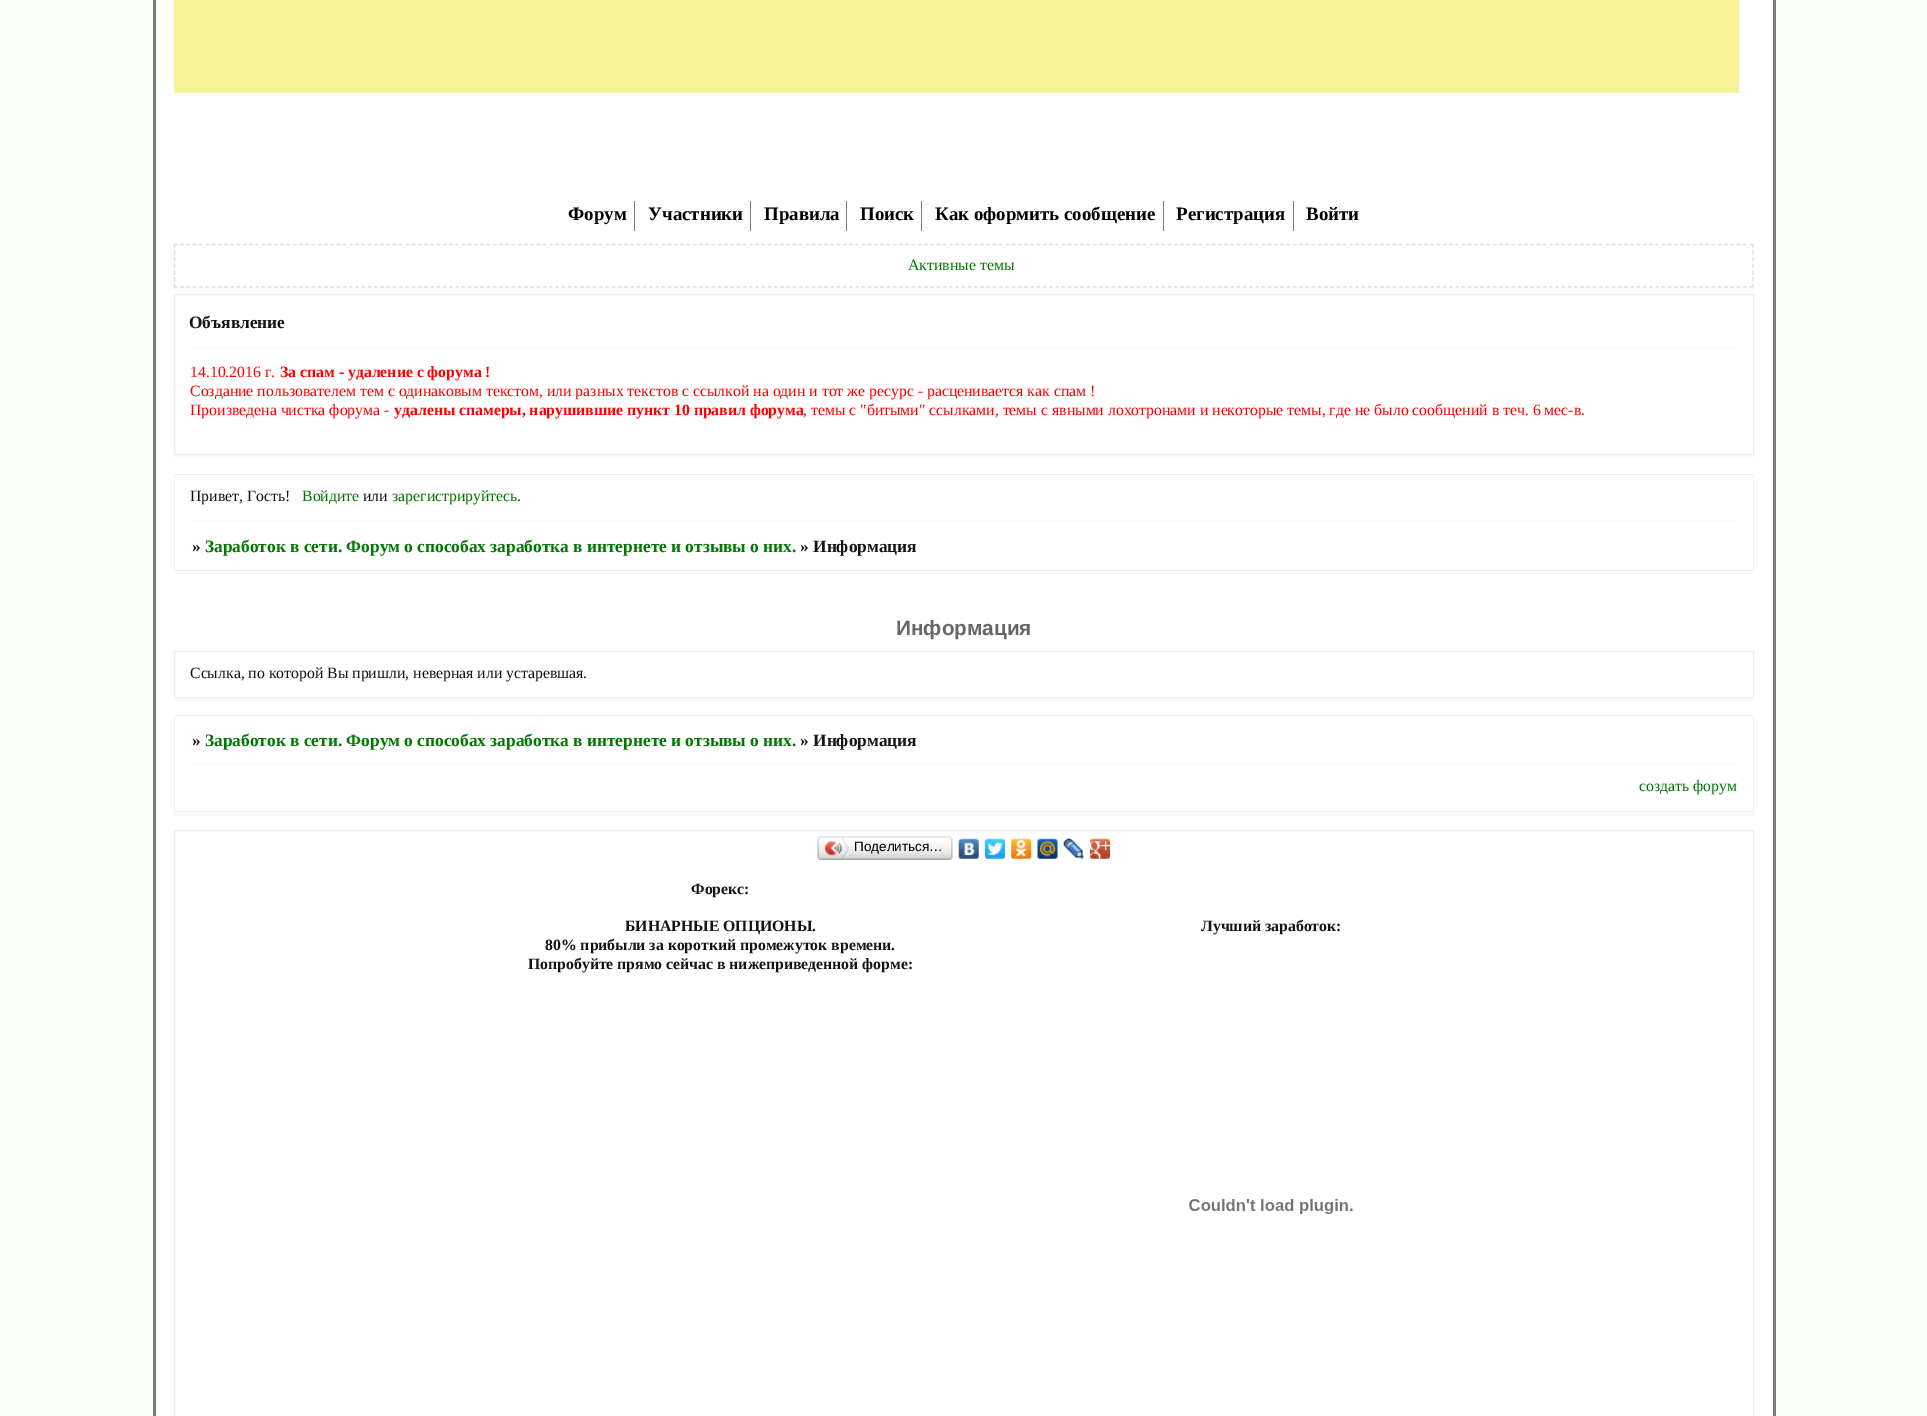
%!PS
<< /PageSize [1927 1416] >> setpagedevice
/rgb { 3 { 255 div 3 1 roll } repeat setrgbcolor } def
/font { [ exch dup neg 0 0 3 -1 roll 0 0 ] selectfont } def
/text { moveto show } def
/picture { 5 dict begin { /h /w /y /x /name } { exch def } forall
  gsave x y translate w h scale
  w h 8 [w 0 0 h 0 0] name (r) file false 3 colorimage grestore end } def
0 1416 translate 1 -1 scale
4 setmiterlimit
250 255 250 rgb
0 0 1927 1416 rectfill
255 255 255 rgb
156 0 1617 1416 rectfill
123 125 123 rgb
1773 0 3 1416 rectfill
153 0 3 1416 rectfill
247 242 151 rgb
174 0 1565 93 rectfill
123 125 123 rgb
634 201 1 30 rectfill
750 201 1 30 rectfill
846 201 1 30 rectfill
921 201 1 30 rectfill
1163 201 1 30 rectfill
1293 201 1 30 rectfill
250 250 250 rgb
174 288 1580 3 rectfill
222 222 222 rgb
1.2 setlinewidth
[3.75 2.5] 0 setdash
174 244.5 moveto 1580 0 rlineto stroke
[3.75 2.91] 0 setdash
1753 244 moveto 0 43.5 rlineto stroke
[3.75 2.5] 0 setdash
174 287 moveto 1580 0 rlineto stroke
[3.75 2.91] 0 setdash
174.5 244 moveto 0 43.5 rlineto stroke
250 250 250 rgb
174 455 1580 3 rectfill
238 238 238 rgb
1 setlinewidth
[] 0 setdash
174.5 294.5 1579 160 rectstroke
250 250 250 rgb
189 348 1550 1 rectfill
238 238 238 rgb
174 474 1580 1 rectfill
1753 474 1 97 rectfill
174 474 1 49 rectfill
250 250 250 rgb
189 520 1550 1 rectfill
174 571 1580 3 rectfill
238 238 238 rgb
174 570 1580 1 rectfill
174 520 1 51 rectfill
250 250 250 rgb
174 698 1580 3 rectfill
238 238 238 rgb
174.5 651.5 1579 46 rectstroke
174 715 1580 1 rectfill
1753 763 1 50 rectfill
1753 715 1 50 rectfill
174 811 1580 1 rectfill
174 763 1 50 rectfill
174 715 1 50 rectfill
250 250 250 rgb
189 763 1550 1 rectfill
174 813 1580 3 rectfill
238 238 238 rgb
174.5 830.5 1579 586 rectstroke
(img_01.rgb) 821 836 128 24 picture
(img_02.rgb) 817 836 5 24 picture
(img_03.rgb) 825 837 25 22 picture
(img_04.rgb) 948 836 5 24 picture
(img_05.rgb) 958 838 21 21 picture
(img_06.rgb) 985 838 20 21 picture
(img_07.rgb) 1011 838 21 21 picture
(img_08.rgb) 1037 838 21 21 picture
(img_09.rgb) 1063 838 21 21 picture
(img_10.rgb) 1090 838 20 21 picture
(img_11.rgb) 1189 1199 164 15 picture
/LiberationSerif-Bold 18.9 font
0 0 0 rgb
(Форум) 568 220 text
(Участники) 648 220 text
(Правила) 764 220 text
(Поиск) 860 220 text
(Как оформить сообщение) 935 220 text
(Регистрация) 1176 220 text
(Войти) 1306 220 text
/LiberationSerif-Regular 15.75 font
0 119 0 rgb
(Активные темы) 908 270 text
/LiberationSerif-Bold 17.35 font
20 20 20 rgb
(Объявление) 189 328 text
/LiberationSerif-Regular 15.75 font
255 0 0 rgb
(14.10.2016 г.) 190 377 text
/LiberationSerif-Bold 15.75 font
(За спам - удаление с форума !) 280 377 text
/LiberationSerif-Regular 15.75 font
(Создание пользователем тем с одинаковым текстом, или разных текстов с ссылкой на один и тот же ресурс - расценивается как спам !) 190 396 text
(Произведена чистка форума -) 190 415 text
/LiberationSerif-Bold 15.75 font
(удалены спамеры, нарушившие пункт 10 правил форума) 394 415 text
/LiberationSerif-Regular 15.75 font
(, темы с "битыми" ссылками, темы с явными лохотронами и некоторые темы, где не было сообщений в теч. 6 мес-в.) 803 415 text
20 20 20 rgb
(Привет, Гость!) 190 501 text
0 119 0 rgb
(Войдите) 302 501 text
20 20 20 rgb
(или) 363 501 text
0 119 0 rgb
(зарегистрируйтесь) 392 501 text
20 20 20 rgb
(.) 517 501 text
/LiberationSerif-Bold 17.35 font
(») 192 552 text
0 119 0 rgb
(Заработок в сети. Форум о способах заработка в интернете и отзывы о них.) 205 552 text
20 20 20 rgb
(» Информация) 800 552 text
/LiberationSans-Bold 20.75 font
102 102 102 rgb
(Информация) 896 635 text
/LiberationSerif-Regular 15.75 font
20 20 20 rgb
(Ссылка, по которой Вы пришли, неверная или устаревшая.) 190 678 text
/LiberationSerif-Bold 17.35 font
(») 192 746 text
0 119 0 rgb
(Заработок в сети. Форум о способах заработка в интернете и отзывы о них.) 205 746 text
20 20 20 rgb
(» Информация) 800 746 text
/LiberationSerif-Regular 15.75 font
0 119 0 rgb
(создать форум) 1639 791 text
/LiberationSans-Regular 13.5 font
0 0 0 rgb
(Поделиться…) 854 851 text
/LiberationSerif-Bold 15.75 font
20 20 20 rgb
(Форекс:) 691 894 text
(БИНАРНЫЕ ОПЦИОНЫ.) 625 931 text
(80% прибыли за короткий промежуток времени.) 545 950 text
(Попробуйте прямо сейчас в нижеприведенной форме:) 528 969 text
(Лучший заработок:) 1201 931 text
showpage
